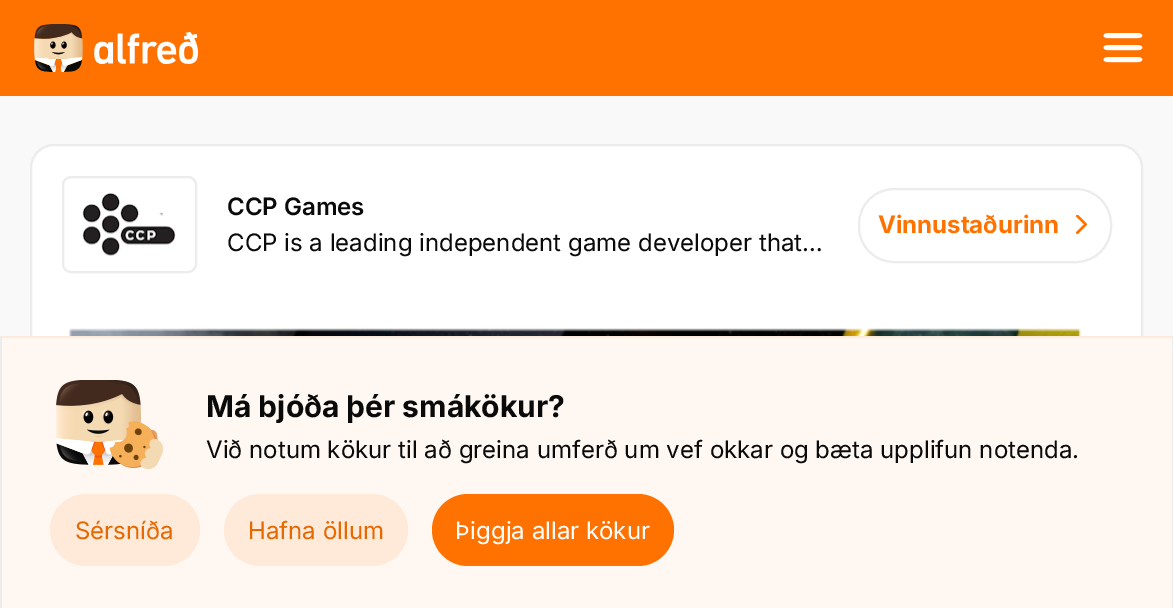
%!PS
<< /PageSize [1173 608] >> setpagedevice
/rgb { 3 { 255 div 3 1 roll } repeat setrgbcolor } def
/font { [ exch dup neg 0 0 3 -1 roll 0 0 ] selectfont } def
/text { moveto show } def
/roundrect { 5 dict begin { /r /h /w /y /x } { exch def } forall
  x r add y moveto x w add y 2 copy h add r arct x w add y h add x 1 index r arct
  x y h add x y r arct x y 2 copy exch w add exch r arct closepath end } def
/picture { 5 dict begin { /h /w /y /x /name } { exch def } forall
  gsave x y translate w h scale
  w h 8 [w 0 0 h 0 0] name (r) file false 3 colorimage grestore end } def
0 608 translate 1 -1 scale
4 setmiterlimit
249 249 249 rgb
0 0 1173 608 rectfill
255 114 0 rgb
0 0 1173 96 rectfill
(img_01.rgb) 34 24 164 48 picture
(img_02.rgb) 1103 33 40 30 picture
255 255 255 rgb
31 145 1111 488 23 roundrect gsave fill grestore
236 236 236 rgb
2 setlinewidth
stroke
63 177 133 95 8 roundrect stroke
(img_03.rgb) 81 193 95 63 picture
859 189 252 73 35 roundrect stroke
(img_04.rgb) 1075 215 13 20 picture
(img_05.rgb) 69 328 1013 8 picture
255 248 242 rgb
2 338 1170 270 rectfill
255 234 217 rgb
0 336 1173 2 rectfill
236 236 236 rgb
1172 336 1 272 rectfill
0 336 2 272 rectfill
(img_06.rgb) 56 380 107 89 picture
255 234 217 rgb
50 494 150 72 36 roundrect fill
224 494 184 72 36 roundrect fill
255 114 0 rgb
432 494 242 72 36 roundrect fill
/Inter-SemiBold 24 font
10 10 10 rgb
(CCP Games) 227 215 text
/Inter-Regular 24 font
(CCP is a leading independent game developer that…) 227 251 text
/Inter-Bold 24 font
255 114 0 rgb
(Vinnustaðurinn) 878 233 text
/Inter-Bold 30 font
10 10 10 rgb
(Má bjóða þér smákökur?) 206 417 text
/Inter-Regular 24 font
(Við notum kökur til að greina umferð um vef okkar og bæta upplifun notenda.) 206 458 text
230 104 0 rgb
(Sérsníða) 75 539 text
(Hafna öllum) 248 539 text
255 255 255 rgb
(Þiggja allar kökur) 455 539 text
showpage
